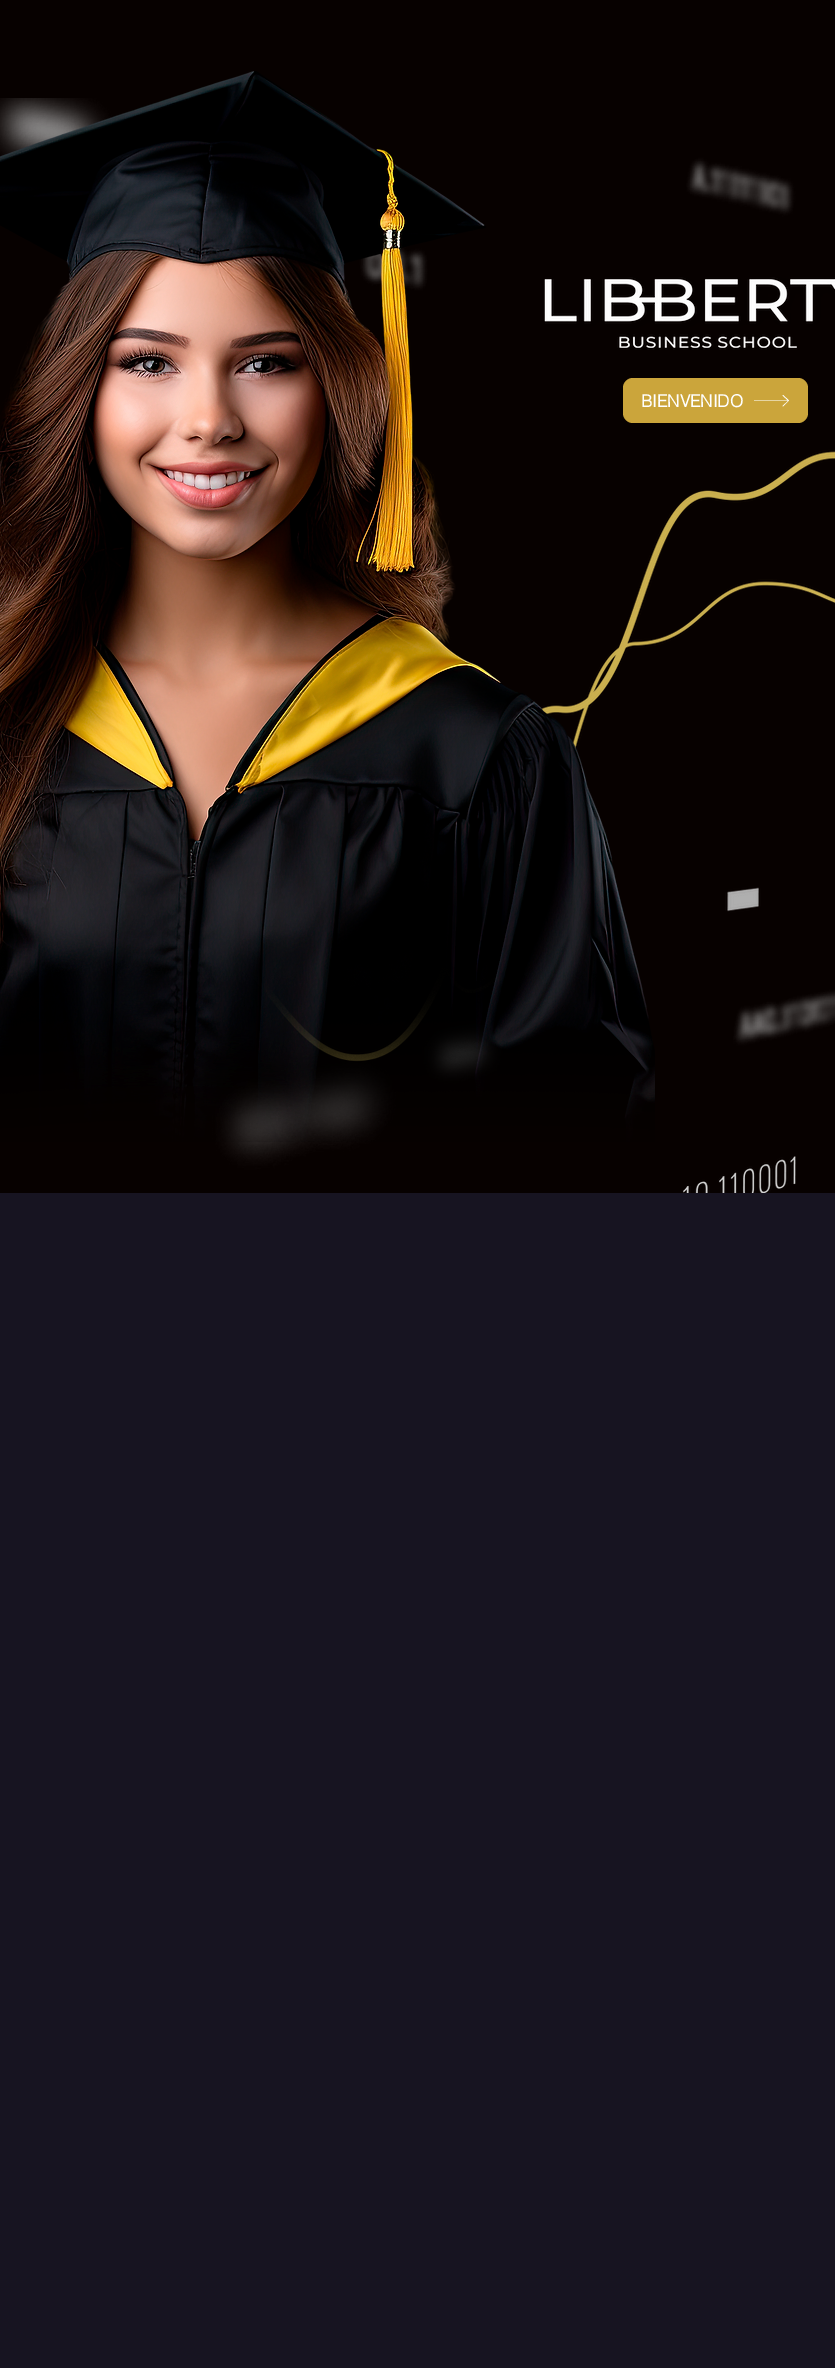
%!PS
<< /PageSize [835 2368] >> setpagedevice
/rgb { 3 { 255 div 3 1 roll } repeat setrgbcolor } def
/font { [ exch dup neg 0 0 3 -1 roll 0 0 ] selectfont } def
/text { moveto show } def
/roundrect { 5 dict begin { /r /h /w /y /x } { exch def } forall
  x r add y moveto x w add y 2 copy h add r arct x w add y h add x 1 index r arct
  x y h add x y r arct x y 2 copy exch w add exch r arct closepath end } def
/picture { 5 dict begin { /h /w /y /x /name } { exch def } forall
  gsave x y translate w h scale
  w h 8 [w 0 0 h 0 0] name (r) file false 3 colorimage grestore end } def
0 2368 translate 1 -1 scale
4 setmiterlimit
23 20 33 rgb
0 0 835 2368 rectfill
7 1 0 rgb
0 0 835 1193 rectfill
(img_02.rgb) 0 98 835 1095 picture
(img_01.rgb) 0 71 655 1071 picture
(img_03.rgb) 544 277 291 73 picture
203 165 59 rgb
623 378 185 45 10 roundrect fill
255 255 255 rgb
783 395 moveto -0.5 0.5 rlineto 5.5 5 rlineto -34 0 rlineto 0 0.5 rlineto 34 0 rlineto -5.5 5 rlineto 0.5 0.5 rlineto 6 -6 rlineto closepath fill
/helvetica-Bold 17 font
(BIENVENIDO) 641 407 text
showpage
